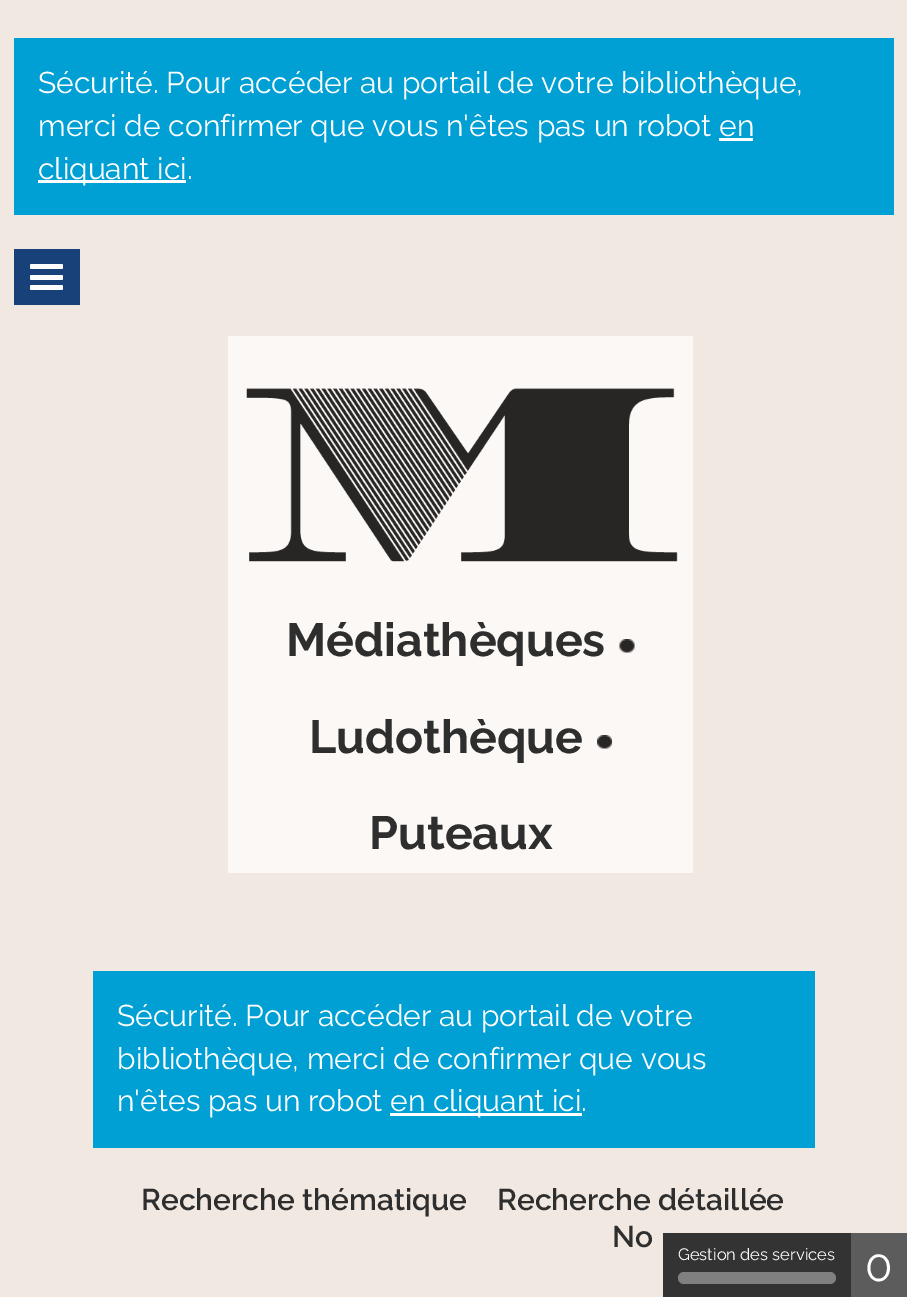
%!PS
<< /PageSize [907 1297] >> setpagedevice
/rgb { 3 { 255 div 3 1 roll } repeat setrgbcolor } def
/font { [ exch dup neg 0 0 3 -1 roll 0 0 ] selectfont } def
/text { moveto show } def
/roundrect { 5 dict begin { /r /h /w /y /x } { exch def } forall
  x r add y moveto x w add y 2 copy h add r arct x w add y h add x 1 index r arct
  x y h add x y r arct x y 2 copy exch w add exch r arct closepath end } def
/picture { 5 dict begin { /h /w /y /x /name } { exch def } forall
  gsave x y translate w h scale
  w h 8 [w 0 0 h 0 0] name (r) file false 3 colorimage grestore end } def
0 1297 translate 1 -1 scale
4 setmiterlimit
241 232 226 rgb
0 0 907 1297 rectfill
0 159 212 rgb
14 38 880 177 rectfill
255 255 255 rgb
719 138 34 3 rectfill
38 180 148 3 rectfill
24 64 121 rgb
14 249 66 56 rectfill
255 255 255 rgb
30 264 33 5 1.5 roundrect fill
30 275 33 5 1.5 roundrect fill
30 285 33 5 1.5 roundrect fill
251 248 246 rgb
228 336 465 537 rectfill
(img_01.rgb) 246 388 432 174 picture
(img_02.rgb) 619 639 16 14 picture
(img_03.rgb) 597 735 15 14 picture
0 159 212 rgb
93 971 722 177 rectfill
255 255 255 rgb
390 1113 192 3 rectfill
51 51 51 rgb
663 1233 188 64 rectfill
128 128 128 rgb
678 1272 158 12 6 roundrect fill
92 92 92 rgb
851 1233 56 64 rectfill
/Raleway-Regular 30 font
255 255 255 rgb
(Sécurité. Pour accéder au portail de votre bibliothèque,) 38 93 text
(merci de confirmer que vous n'êtes pas un robot en) 38 136 text
(cliquant ici.) 38 179 text
/Raleway-Bold 46.5 font
46 46 46 rgb
(Médiathèques) 286 656 text
(Ludothèque) 309 753 text
(Puteaux) 369 849 text
/Raleway-Regular 30 font
255 255 255 rgb
(Sécurité. Pour accéder au portail de votre) 117 1026 text
(bibliothèque, merci de confirmer que vous) 117 1069 text
(n'êtes pas un robot) 117 1111 text
(en cliquant ici.) 390 1111 text
/Raleway-SemiBold 30 font
46 46 46 rgb
(Recherche thématique) 141 1210 text
(Recherche détaillée) 497 1210 text
(No) 612 1247 text
/Raleway-Regular 16.5 font
255 255 255 rgb
(Gestion des services) 678 1260 text
/Raleway-Regular 45 font
(0) 865 1281 text
showpage
